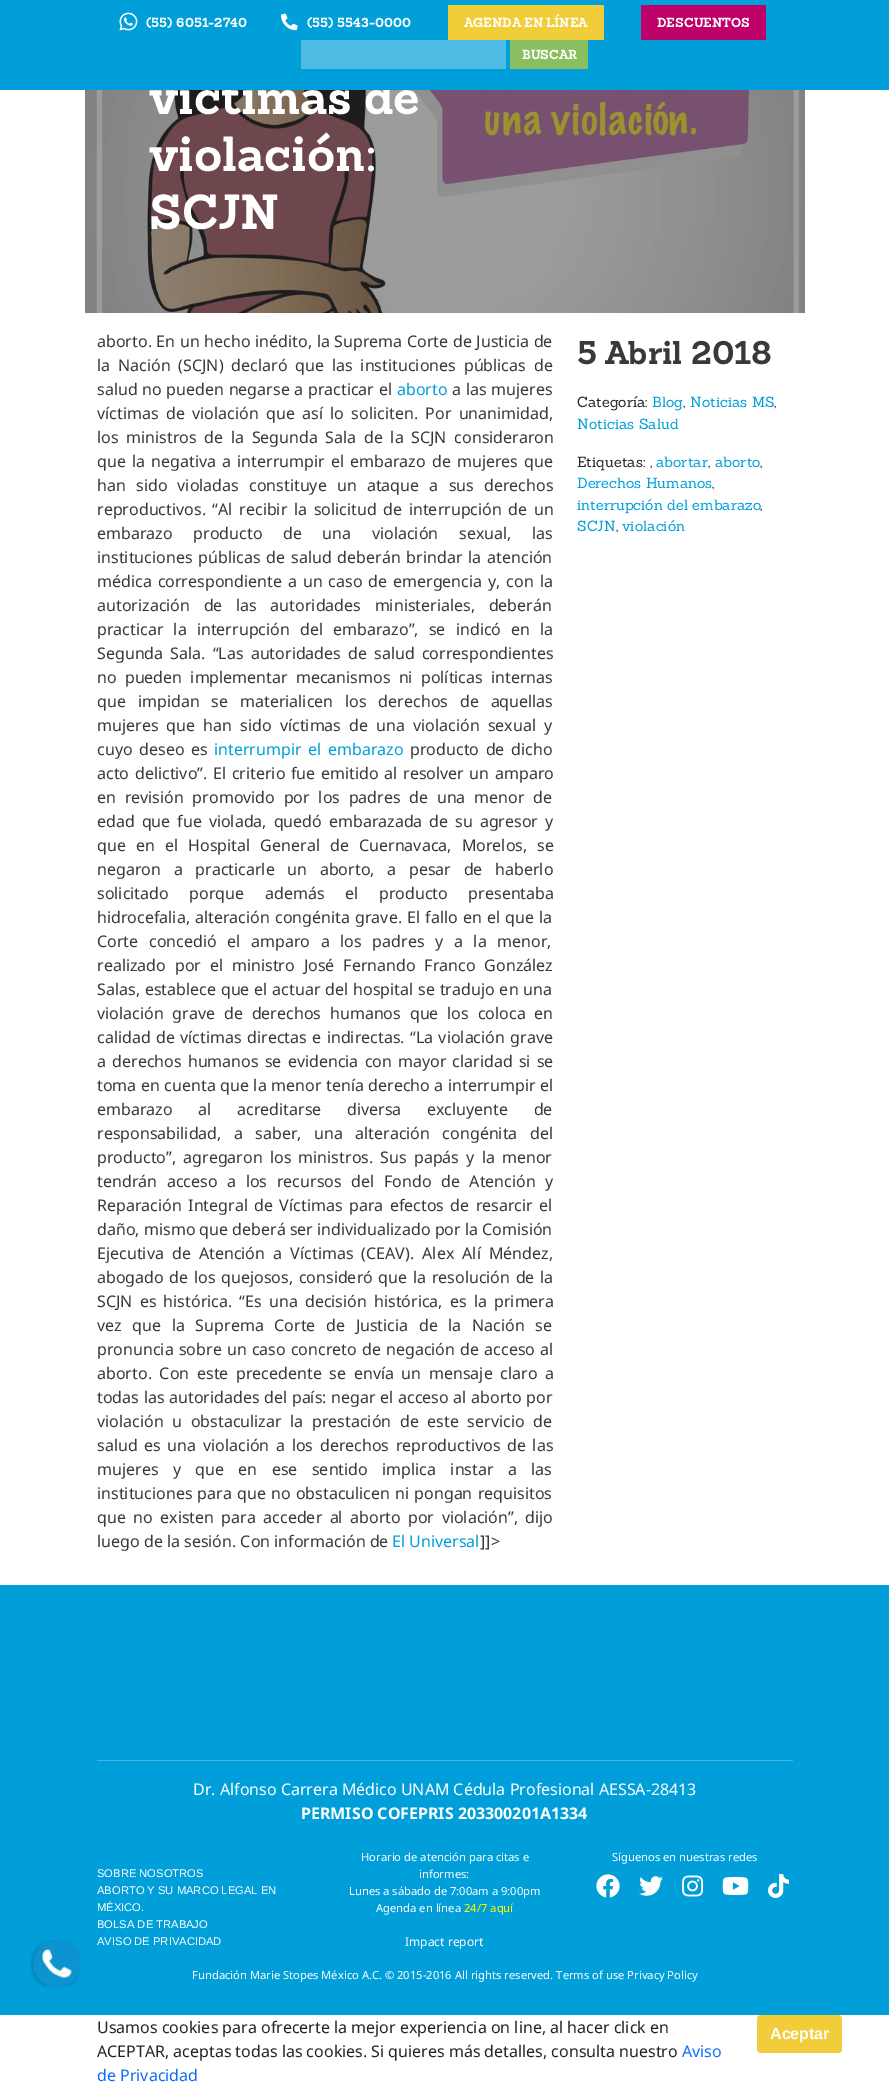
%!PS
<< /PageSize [889 2087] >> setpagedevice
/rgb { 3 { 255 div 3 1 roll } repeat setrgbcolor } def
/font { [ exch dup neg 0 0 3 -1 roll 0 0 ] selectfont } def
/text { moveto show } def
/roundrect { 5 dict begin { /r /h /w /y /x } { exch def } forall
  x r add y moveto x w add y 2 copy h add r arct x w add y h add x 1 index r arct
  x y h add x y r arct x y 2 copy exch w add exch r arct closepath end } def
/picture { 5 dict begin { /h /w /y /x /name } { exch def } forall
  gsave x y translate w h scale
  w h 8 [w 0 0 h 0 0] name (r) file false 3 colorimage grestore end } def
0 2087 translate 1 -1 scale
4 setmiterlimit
255 255 255 rgb
0 0 889 2087 rectfill
(img_03.rgb) 85 90 720 223 picture
0 159 218 rgb
0 1585 889 430 rectfill
(img_04.rgb) 30 1940 50 47 picture
64 183 227 rgb
97 1760 696 1 rectfill
(img_05.rgb) 596 1874 24 24 picture
(img_06.rgb) 639 1876 24 20 picture
(img_07.rgb) 682 1875 22 22 picture
(img_08.rgb) 722 1877 27 18 picture
(img_09.rgb) 768 1874 21 24 picture
242 205 58 rgb
757 2015 85 38 4 roundrect fill
/Sanchez-Bold 48 font
255 255 255 rgb
(víctimas de) 149 114 text
0 159 218 rgb
0 0 889 90 rectfill
(img_02.rgb) 281 13 17 18 picture
(img_01.rgb) 119 12 19 19 picture
137 191 95 rgb
510 40 78 29 rectfill
/Sanchez-Bold 12.75 font
255 255 255 rgb
(BUSCAR) 522 59 text
77 188 229 rgb
301 40 205 29 rectfill
190 0 105 rgb
641 5 125 35 rectfill
255 255 255 rgb
(DESCUENTOS) 657 27 text
242 205 58 rgb
448 5 156 35 rectfill
255 255 255 rgb
(AGENDA EN LÍNEA) 464 27 text
(\(55\) 5543-0000) 307 27 text
(\(55\) 6051-2740) 146 27 text
/Sanchez-Bold 48 font
(violación:) 149 171 text
(SCJN) 149 229 text
/NotoSans-Regular 16 font
57 57 57 rgb
97 347 moveto 0.5 0 32 (aborto. En un hecho inédito, la Suprema Corte de Justicia de) widthshow
97 371 moveto 3.75 0 32 (la Nación \(SCJN\) declaró que las instituciones públicas de) widthshow
97 395 moveto 0.5 0 32 (salud no pueden negarse a practicar el) widthshow
0 159 218 rgb
(aborto) 397 395 text
57 57 57 rgb
452 395 moveto 0.5 0 32 (a las mujeres) widthshow
97 419 moveto 3.25 0 32 (víctimas de violación que así lo soliciten. Por unanimidad,) widthshow
97 443 moveto 3.5 0 32 (los ministros de la Segunda Sala de la SCJN consideraron) widthshow
97 467 moveto 2 0 32 (que la negativa a interrumpir el embarazo de mujeres que) widthshow
97 491 moveto 6 0 32 (han sido violadas constituye un ataque a sus derechos) widthshow
97 515 moveto 2.5 0 32 (reproductivos. “Al recibir la solicitud de interrupción de un) widthshow
97 539 moveto 16.5 0 32 (embarazo producto de una violación sexual, las) widthshow
97 563 moveto 1.75 0 32 (instituciones públicas de salud deberán brindar la atención) widthshow
97 587 moveto 1.75 0 32 (médica correspondiente a un caso de emergencia y, con la) widthshow
97 611 moveto 9.5 0 32 (autorización de las autoridades ministeriales, deberán) widthshow
97 635 moveto 6 0 32 (practicar la interrupción del embarazo”, se indicó en la) widthshow
97 659 moveto 3 0 32 (Segunda Sala. “Las autoridades de salud correspondientes) widthshow
97 683 moveto 4 0 32 (no pueden implementar mecanismos ni políticas internas) widthshow
97 707 moveto 7.75 0 32 (que impidan se materialicen los derechos de aquellas) widthshow
97 731 moveto 4 0 32 (mujeres que han sido víctimas de una violación sexual y) widthshow
97 755 moveto 2.5 0 32 (cuyo deseo es) widthshow
0 159 218 rgb
214 755 moveto 2.5 0 32 (interrumpir el embarazo) widthshow
57 57 57 rgb
410 755 moveto 2.5 0 32 (producto de dicho) widthshow
97 779 moveto 1.5 0 32 (acto delictivo”. El criterio fue emitido al resolver un amparo) widthshow
97 803 moveto 4.5 0 32 (en revisión promovido por los padres de una menor de) widthshow
97 827 moveto 2.75 0 32 (edad que fue violada, quedó embarazada de su agresor y) widthshow
97 851 moveto 6 0 32 (que en el Hospital General de Cuernavaca, Morelos, se) widthshow
97 875 moveto 8.5 0 32 (negaron a practicarle un aborto, a pesar de haberlo) widthshow
97 899 moveto 16.5 0 32 (solicitado porque además el producto presentaba) widthshow
97 923 moveto 1 0 32 (hidrocefalia, alteración congénita grave. El fallo en el que la) widthshow
97 947 moveto 6.5 0 32 (Corte concedió el amparo a los padres y a la menor,) widthshow
97 971 moveto 4.75 0 32 (realizado por el ministro José Fernando Franco González) widthshow
97 995 moveto 0.75 0 32 (Salas, establece que el actuar del hospital se tradujo en una) widthshow
97 1019 moveto 4.75 0 32 (violación grave de derechos humanos que los coloca en) widthshow
97 1043 moveto 1.25 0 32 (calidad de víctimas directas e indirectas. “La violación grave) widthshow
97 1067 moveto 2 0 32 (a derechos humanos se evidencia con mayor claridad si se) widthshow
97 1091 moveto 0.4 0 32 (toma en cuenta que la menor tenía derecho a interrumpir el) widthshow
97 1115 moveto 21.5 0 32 (embarazo al acreditarse diversa excluyente de) widthshow
97 1139 moveto 8.25 0 32 (responsabilidad, a saber, una alteración congénita del) widthshow
97 1163 moveto 3 0 32 (producto”, agregaron los ministros. Sus papás y la menor) widthshow
97 1187 moveto 5.5 0 32 (tendrán acceso a los recursos del Fondo de Atención y) widthshow
97 1211 moveto 2.25 0 32 (Reparación Integral de Víctimas para efectos de resarcir el) widthshow
(daño, mismo que deberá ser individualizado por la Comisión) 97 1235 text
97 1259 moveto 4 0 32 (Ejecutiva de Atención a Víctimas \(CEAV\). Alex Alí Méndez,) widthshow
97 1283 moveto 1.5 0 32 (abogado de los quejosos, consideró que la resolución de la) widthshow
97 1307 moveto 3 0 32 (SCJN es histórica. “Es una decisión histórica, es la primera) widthshow
97 1331 moveto 6.5 0 32 (vez que la Suprema Corte de Justicia de la Nación se) widthshow
97 1355 moveto 1 0 32 (pronuncia sobre un caso concreto de negación de acceso al) widthshow
97 1379 moveto 3.5 0 32 (aborto. Con este precedente se envía un mensaje claro a) widthshow
97 1403 moveto 0.5 0 32 (todas las autoridades del país: negar el acceso al aborto por) widthshow
97 1427 moveto 4.5 0 32 (violación u obstaculizar la prestación de este servicio de) widthshow
97 1451 moveto 2.5 0 32 (salud es una violación a los derechos reproductivos de las) widthshow
97 1475 moveto 10.25 0 32 (mujeres y que en ese sentido implica instar a las) widthshow
97 1499 moveto 1 0 32 (instituciones para que no obstaculicen ni pongan requisitos) widthshow
97 1523 moveto 3.25 0 32 (que no existen para acceder al aborto por violación”, dijo) widthshow
(luego de la sesión. Con información de) 97 1547 text
0 159 218 rgb
(El Universal) 392 1547 text
57 57 57 rgb
(]]>) 480 1547 text
/Sanchez-Bold 32 font
(5 Abril 2018) 577 364 text
/Sanchez-Regular 14.4 font
33 37 41 rgb
(Categoría:) 577 407 text
0 159 218 rgb
(Blog) 652 407 text
33 37 41 rgb
(,) 683 407 text
0 159 218 rgb
(Noticias MS) 690 407 text
33 37 41 rgb
(,) 774 407 text
0 159 218 rgb
(Noticias Salud) 577 429 text
33 37 41 rgb
(Etiquetas: ,) 577 467 text
0 159 218 rgb
(abortar) 656 467 text
33 37 41 rgb
(,) 708 467 text
0 159 218 rgb
(aborto) 715 467 text
33 37 41 rgb
(,) 760 467 text
0 159 218 rgb
(Derechos Humanos) 577 488 text
33 37 41 rgb
(,) 712 488 text
0 159 218 rgb
(interrupción del embarazo) 577 510 text
33 37 41 rgb
(,) 760 510 text
0 159 218 rgb
(SCJN) 577 531 text
33 37 41 rgb
(,) 616 531 text
0 159 218 rgb
(violación) 622 531 text
/NotoSans-Regular 16 font
255 255 255 rgb
(Dr. Alfonso Carrera Médico UNAM Cédula Profesional AESSA-28413) 193 1795 text
/NotoSans-Bold 16 font
(PERMISO COFEPRIS 203300201A1334) 301 1819 text
/NotoSans-Regular 11.2 font
(Horario de atención para citas e) 361 1861 text
(informes:) 419 1878 text
(Lunes a sábado de 7:00am a 9:00pm) 349 1895 text
(Agenda en línea) 376 1912 text
255 255 0 rgb
(24/7 aquí) 464 1912 text
/NotoSans-Regular 12 font
255 255 255 rgb
(Impact report) 405 1946 text
/NotoSans-Regular 11.2 font
(Síguenos en nuestras redes) 612 1861 text
/LiberationSans-Regular 11.2 font
(SOBRE NOSOTROS) 97 1877 text
(ABORTO Y SU MARCO LEGAL EN) 97 1894 text
(MÉXICO.) 97 1911 text
(BOLSA DE TRABAJO) 97 1928 text
(AVISO DE PRIVACIDAD) 97 1945 text
/NotoSans-Regular 11.2 font
(Fundación Marie Stopes México A.C. © 2015-2016 All rights reserved. Terms of use Privacy Policy) 192 1979 text
/NotoSans-Regular 16 font
33 37 41 rgb
(Usamos cookies para ofrecerte la mejor experiencia on line, al hacer click en) 97 2033 text
(ACEPTAR, aceptas todas las cookies. Si quieres más detalles, consulta nuestro) 97 2057 text
13 110 253 rgb
(Aviso) 682 2057 text
(de Privacidad) 97 2081 text
/LiberationSans-Bold 16 font
255 255 255 rgb
(Aceptar) 770 2039 text
showpage
